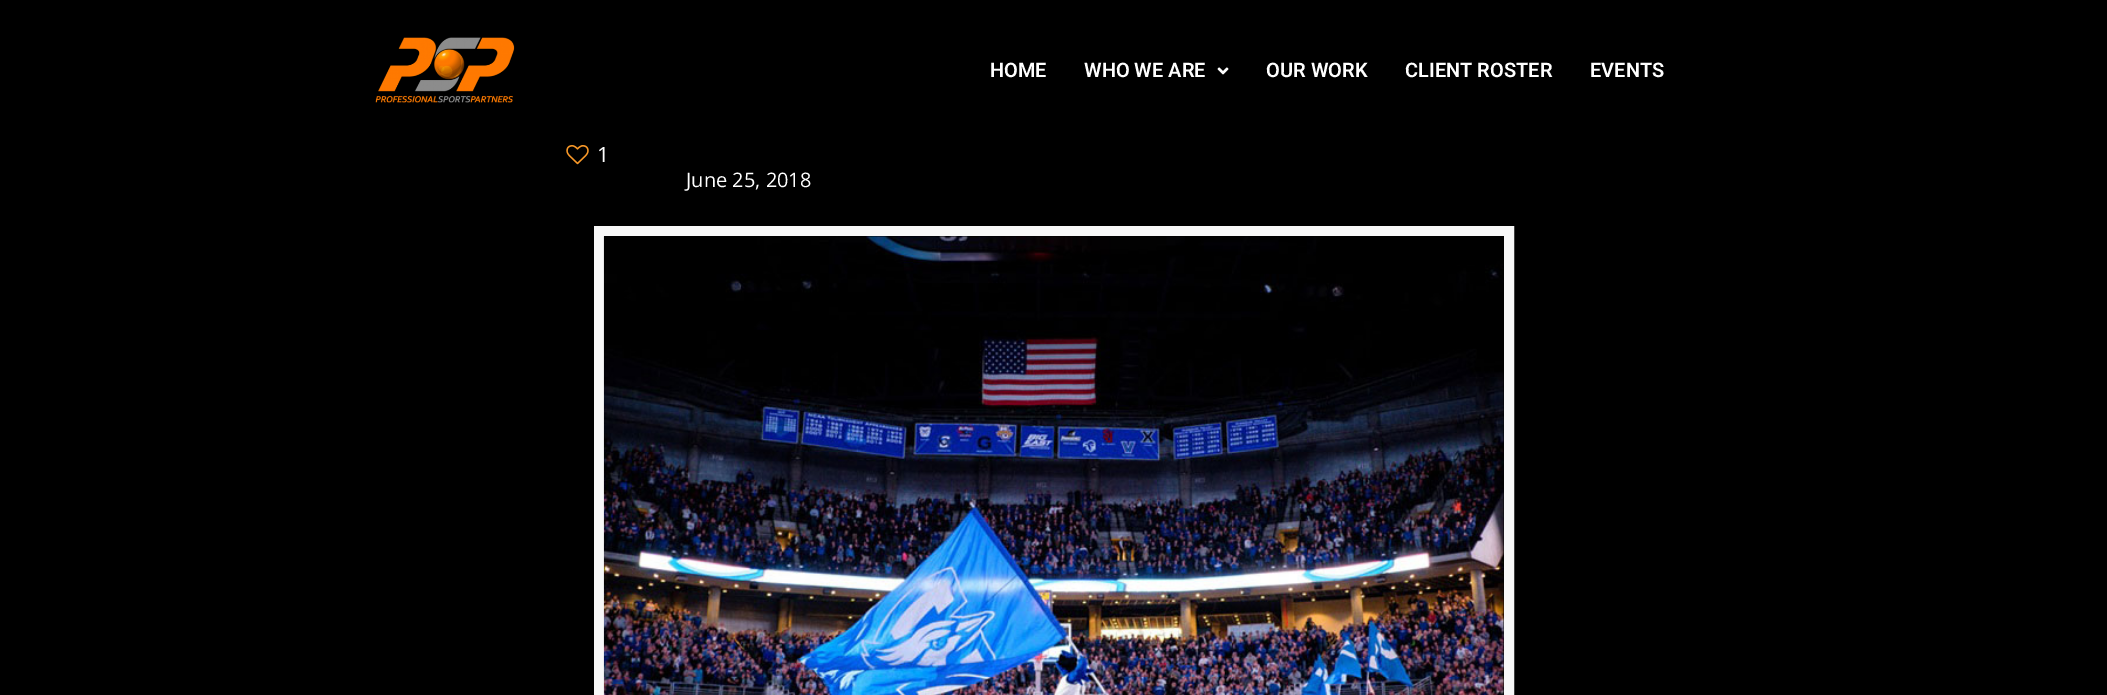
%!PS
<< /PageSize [2107 695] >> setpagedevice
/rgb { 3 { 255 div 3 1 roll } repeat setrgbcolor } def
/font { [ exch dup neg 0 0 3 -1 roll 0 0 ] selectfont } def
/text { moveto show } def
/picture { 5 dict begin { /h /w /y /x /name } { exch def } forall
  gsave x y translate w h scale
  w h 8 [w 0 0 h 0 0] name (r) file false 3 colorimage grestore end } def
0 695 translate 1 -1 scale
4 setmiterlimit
0 0 0 rgb
0 0 2107 695 rectfill
(img_01.rgb) 375 37 140 66 picture
(img_02.rgb) 1217 67 12 8 picture
(img_03.rgb) 566 145 23 20 picture
248 248 248 rgb
10 setlinewidth
599 231 910 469 rectstroke
(img_04.rgb) 603 236 901 459 picture
/Roboto-SemiBold 20 font
255 255 255 rgb
(HOME) 990 77 text
(WHO WE ARE) 1084 77 text
(OUR WORK) 1266 77 text
(CLIENT ROSTER) 1405 77 text
(EVENTS) 1590 77 text
/OpenSans-Regular 21 font
(1) 597 162 text
/OpenSans-Regular 20 font
(June 25, 2018) 686 187 text
showpage
